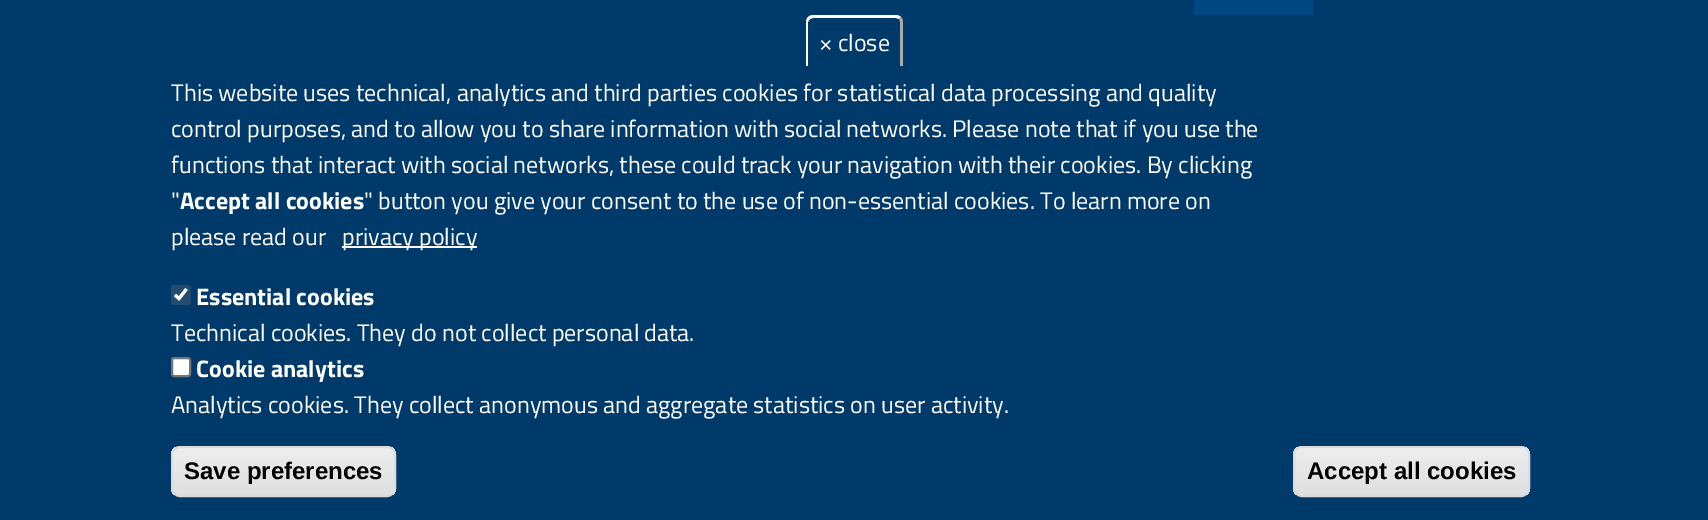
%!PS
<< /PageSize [1708 520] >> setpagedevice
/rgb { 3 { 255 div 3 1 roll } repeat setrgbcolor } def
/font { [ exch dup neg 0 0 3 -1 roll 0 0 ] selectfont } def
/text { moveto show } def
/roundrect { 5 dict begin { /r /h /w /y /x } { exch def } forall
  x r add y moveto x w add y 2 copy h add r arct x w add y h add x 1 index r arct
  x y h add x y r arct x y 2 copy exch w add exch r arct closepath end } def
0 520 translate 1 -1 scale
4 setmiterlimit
0 58 106 rgb
0 0 1708 520 rectfill
0 72 132 rgb
1194 0 119 15 rectfill
255 255 255 rgb
813 15 moveto 83 0 rlineto 2 0 4 1 5 2 rcurveto -2 2 rlineto -3 -1 rlineto -83 0 rlineto -3 1 rlineto -2 -2 rlineto 1 -1 3 -2 5 -2 rcurveto closepath fill
170 170 170 rgb
900 66 moveto 3 0 rlineto 0 -44 rlineto 0 -2 -1 -4 -2 -5 rcurveto -2 2 rlineto 1 1 1 2 1 3 rcurveto closepath fill
255 255 255 rgb
806 66 moveto 2 0 rlineto 0 -44 rlineto 2 -3 rlineto -2 -2 rlineto -1 1 -2 3 -2 5 rcurveto closepath fill
342 246 135 2 rectfill
35 76 110 rgb
171 285 20 20 3 roundrect fill
255 255 255 rgb
3.1 setlinewidth
175 295 moveto 4 3.5 rlineto 7.5 -9.5 rlineto stroke
172 358 18 18 2 roundrect gsave fill grestore
118 118 118 rgb
2 setlinewidth
stroke
gsave
171 446 225 51 9 roundrect clip newpath
gsave 171 447 moveto 225 0 rlineto 0 48 rlineto -225 0 rlineto closepath clip newpath
<< /ShadingType 2 /ColorSpace /DeviceRGB /Coords [284 447 284 495] /Extend [true true] /Function << /FunctionType 3 /Domain [0 1] /Functions [<< /FunctionType 2 /Domain [0 1] /C0 [0.929 0.929 0.929] /C1 [0.929 0.929 0.929] /N 1 >> << /FunctionType 2 /Domain [0 1] /C0 [0.929 0.929 0.929] /C1 [0.875 0.875 0.875] /N 1 >>] /Bounds [0.05] /Encode [0 1 0 1] >> >> shfill grestore
grestore
255 255 255 rgb
180 448 moveto 207 0 rlineto 4 0 7 4 7 8 rcurveto 0 33 rlineto 0 3 rlineto 0 -2 1 -3 1 -5 rcurveto 0 -32 rlineto 0 -4 -4 -8 -8 -8 rcurveto -206 0 rlineto -3 0 -5 2 -7 4 rcurveto 2 -2 4 -3 6 -3 rcurveto closepath fill
220 220 220 rgb
172 447 223 49 8 roundrect stroke
gsave
1293 446 237 51 9 roundrect clip newpath
gsave 1293 447 moveto 237 0 rlineto 0 48 rlineto -237 0 rlineto closepath clip newpath
<< /ShadingType 2 /ColorSpace /DeviceRGB /Coords [1412 447 1412 495] /Extend [true true] /Function << /FunctionType 3 /Domain [0 1] /Functions [<< /FunctionType 2 /Domain [0 1] /C0 [0.929 0.929 0.929] /C1 [0.929 0.929 0.929] /N 1 >> << /FunctionType 2 /Domain [0 1] /C0 [0.929 0.929 0.929] /C1 [0.875 0.875 0.875] /N 1 >>] /Bounds [0.05] /Encode [0 1 0 1] >> >> shfill grestore
grestore
255 255 255 rgb
1302 448 moveto 219 0 rlineto 4 0 7 4 7 8 rcurveto 0 33 rlineto 0 3 rlineto 0 -2 1 -3 1 -5 rcurveto 0 -32 rlineto 0 -4 -4 -8 -8 -8 rcurveto -218 0 rlineto -3 0 -5 2 -7 4 rcurveto 2 -2 4 -3 6 -3 rcurveto closepath fill
220 220 220 rgb
1294 447 235 49 8 roundrect stroke
/TitilliumWeb-Regular 24 font
255 255 255 rgb
(× close) 819 51 text
(This website uses technical, analytics and third parties cookies for statistical data processing and quality) 171 101 text
(control purposes, and to allow you to share information with social networks. Please note that if you use the) 171 137 text
(functions that interact with social networks, these could track your navigation with their cookies. By clicking) 171 173 text
(") 171 209 text
/TitilliumWeb-Bold 24 font
(Accept all cookies) 180 209 text
/TitilliumWeb-Regular 24 font
(" button you give your consent to the use of non-essential cookies. To learn more on) 364 209 text
(please read our) 171 245 text
(privacy policy) 342 245 text
/TitilliumWeb-Bold 24 font
(Essential cookies) 196 305 text
/TitilliumWeb-Regular 24 font
(Technical cookies. They do not collect personal data.) 171 341 text
/TitilliumWeb-Bold 24 font
(Cookie analytics) 196 377 text
/TitilliumWeb-Regular 24 font
(Analytics cookies. They collect anonymous and aggregate statistics on user activity.) 171 413 text
/LiberationSans-Bold 24 font
0 0 0 rgb
(Save preferences) 184 479 text
(Accept all cookies) 1307 479 text
showpage
